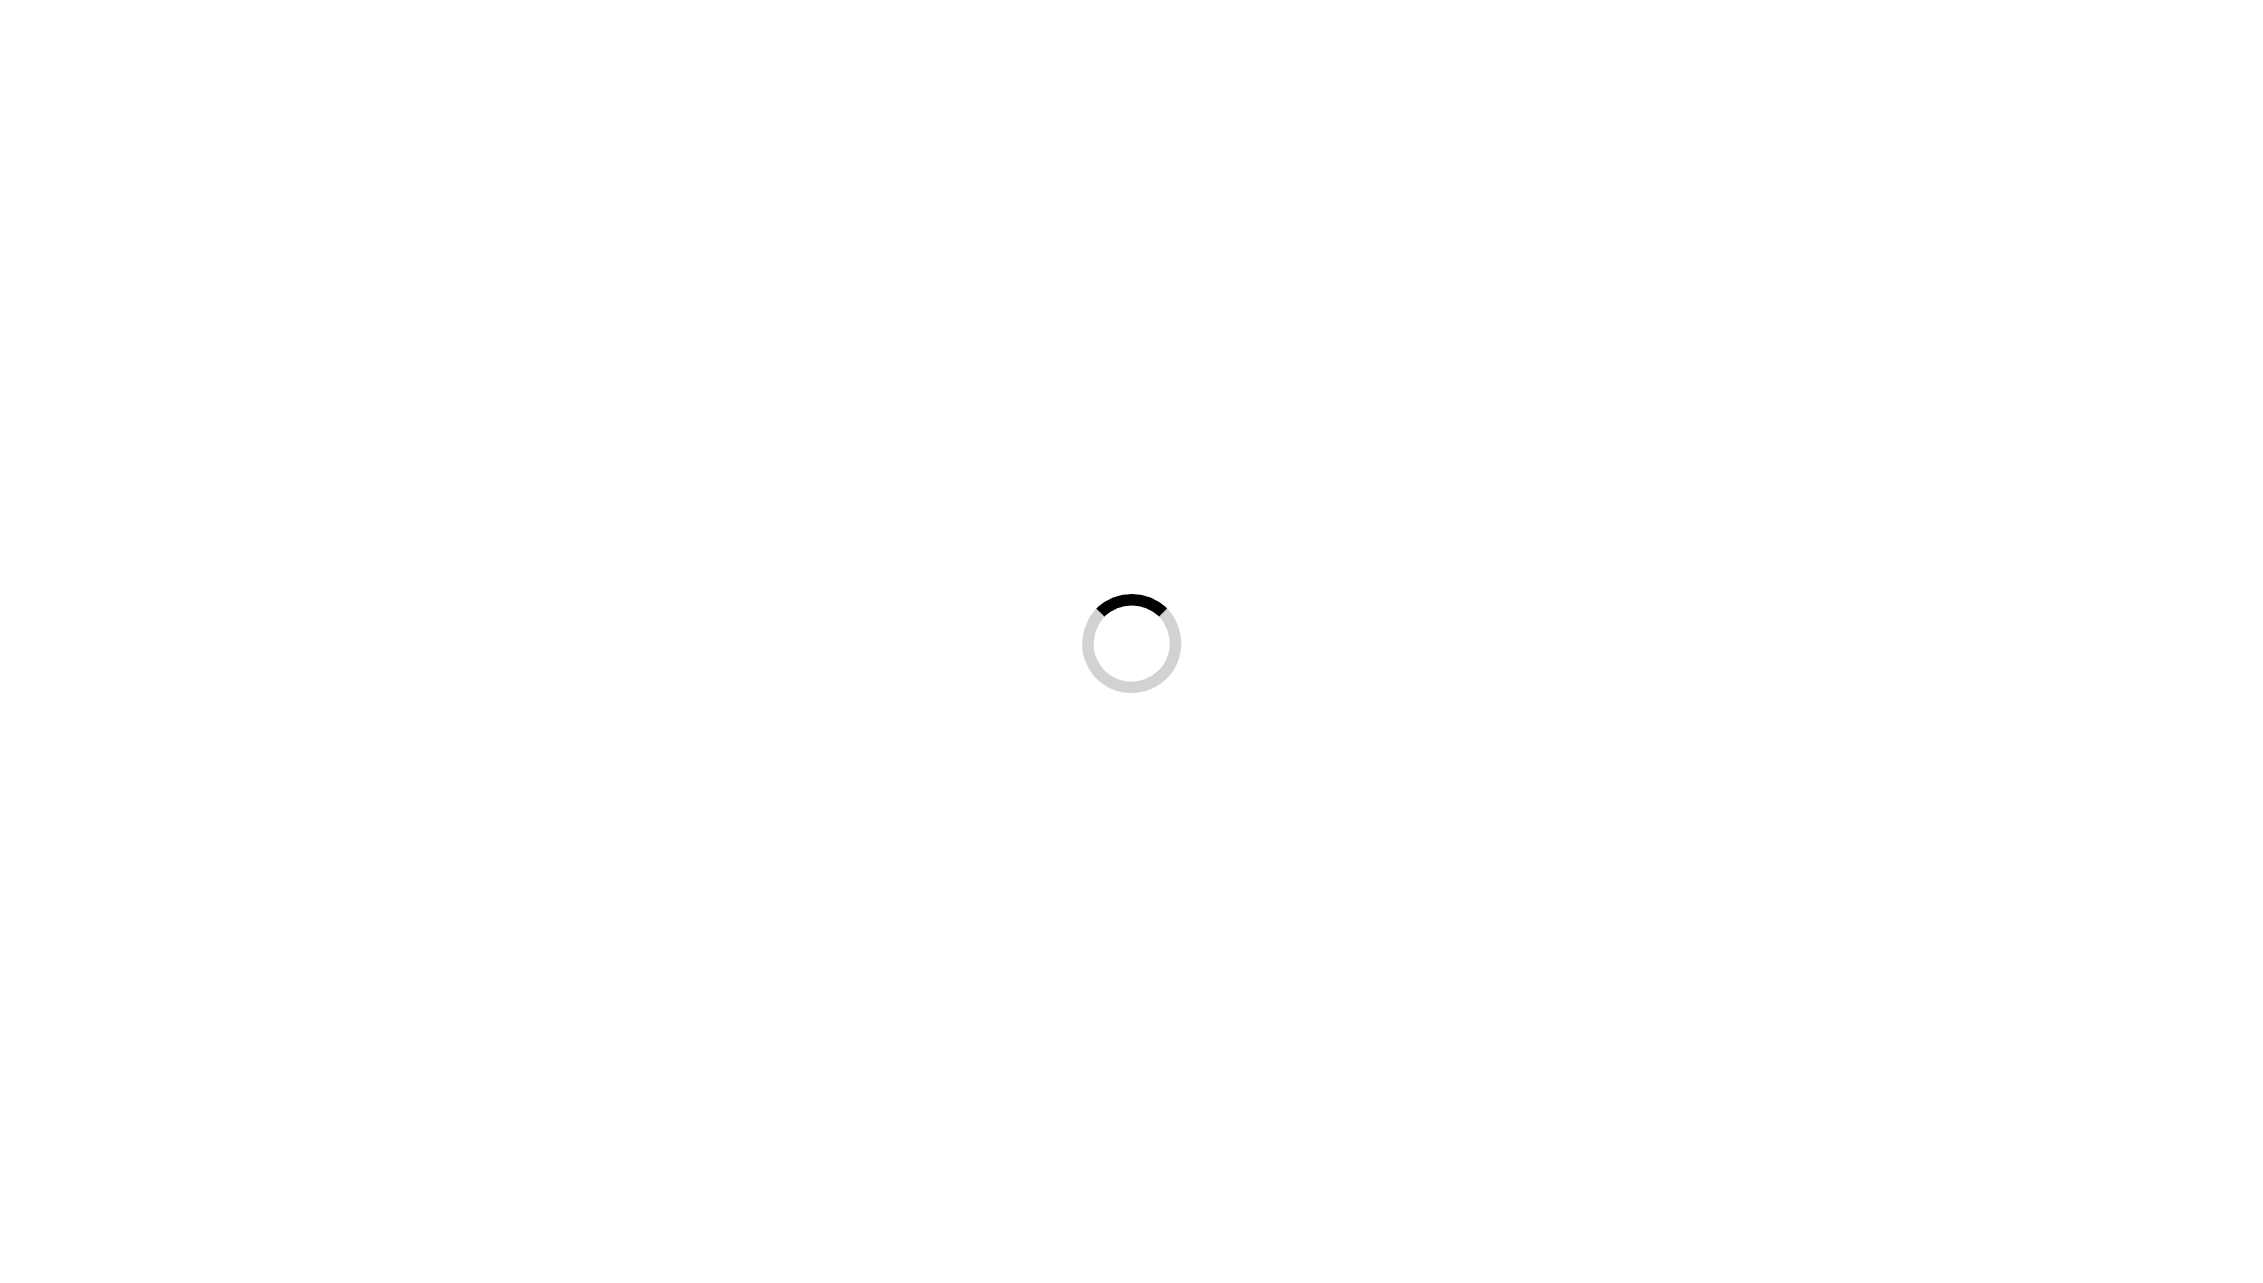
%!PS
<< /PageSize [2263 1283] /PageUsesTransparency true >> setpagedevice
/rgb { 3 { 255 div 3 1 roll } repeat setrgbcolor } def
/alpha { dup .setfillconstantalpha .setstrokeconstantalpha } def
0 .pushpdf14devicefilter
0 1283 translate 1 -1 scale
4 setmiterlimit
255 255 255 rgb
0 0 2263 1283 rectfill
0 0 0 rgb
11.2 setlinewidth
1100.5 612.5 moveto 17 -17 45.5 -17 62.5 0 rcurveto stroke
0.2 alpha
29 29 29 rgb
1163 612.5 moveto 8 8 12.5 19.5 12.5 31 rcurveto 0 39 -47.5 58.5 -75 31 rcurveto -6 -6 -10 -14 -12 -22.5 rcurveto -2.5 -14 2 -29 12 -39.5 rcurveto stroke
.poppdf14devicefilter showpage
